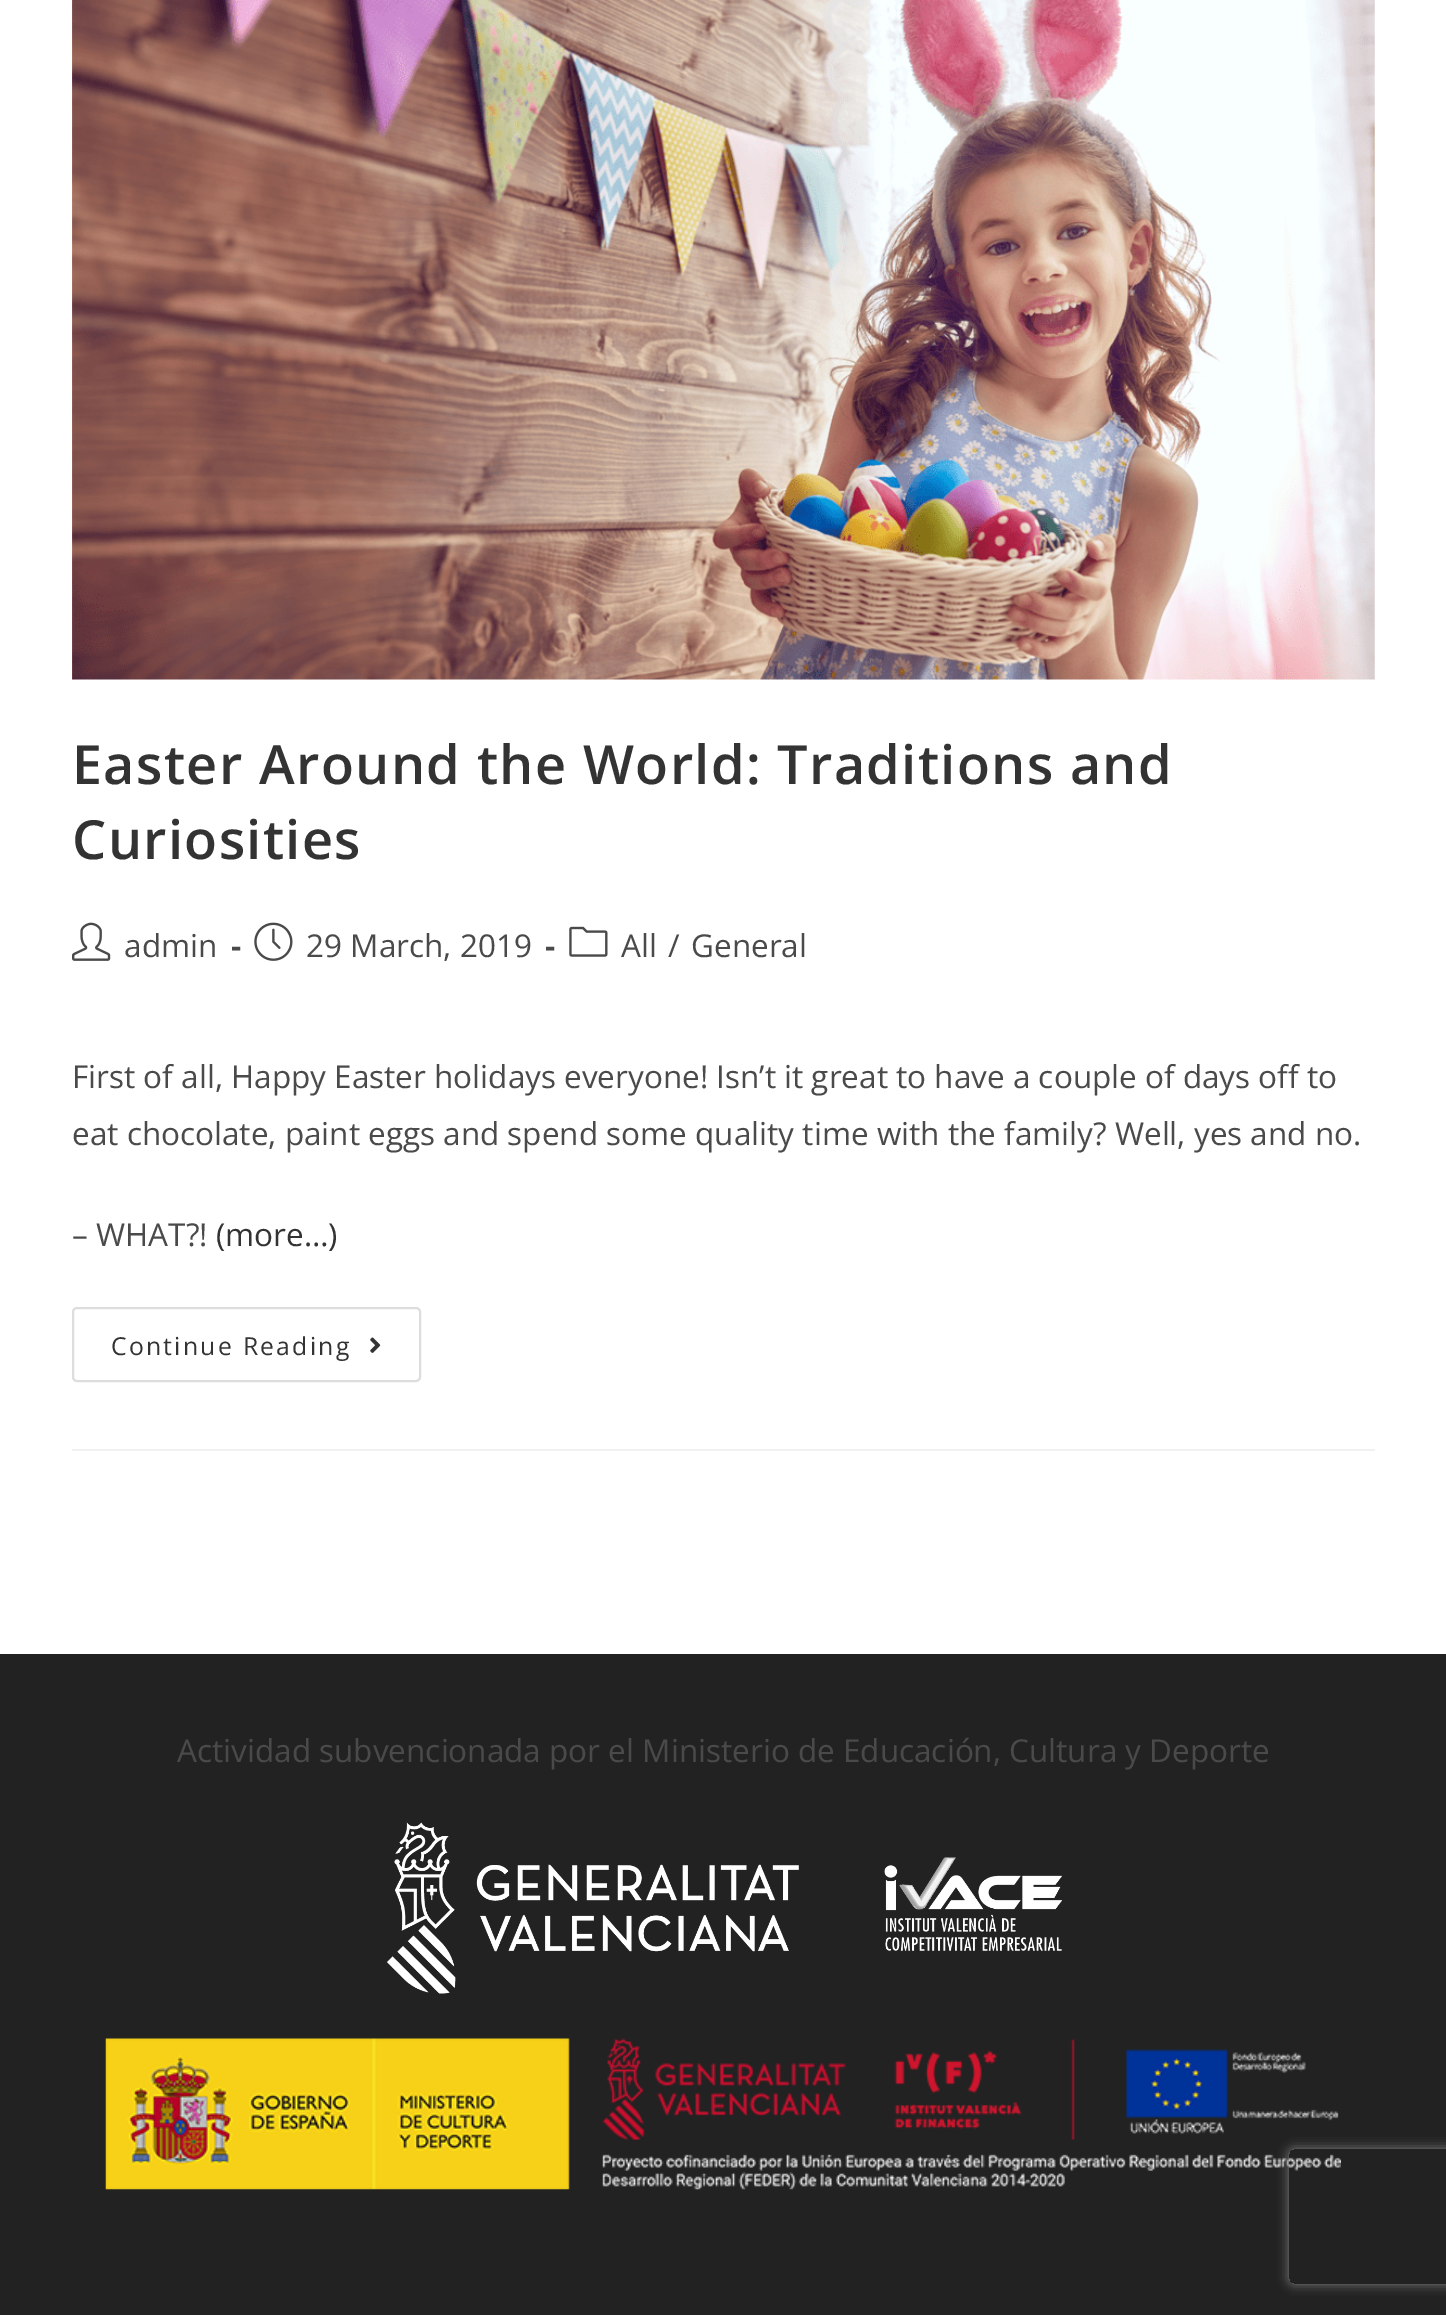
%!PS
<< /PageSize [1446 2315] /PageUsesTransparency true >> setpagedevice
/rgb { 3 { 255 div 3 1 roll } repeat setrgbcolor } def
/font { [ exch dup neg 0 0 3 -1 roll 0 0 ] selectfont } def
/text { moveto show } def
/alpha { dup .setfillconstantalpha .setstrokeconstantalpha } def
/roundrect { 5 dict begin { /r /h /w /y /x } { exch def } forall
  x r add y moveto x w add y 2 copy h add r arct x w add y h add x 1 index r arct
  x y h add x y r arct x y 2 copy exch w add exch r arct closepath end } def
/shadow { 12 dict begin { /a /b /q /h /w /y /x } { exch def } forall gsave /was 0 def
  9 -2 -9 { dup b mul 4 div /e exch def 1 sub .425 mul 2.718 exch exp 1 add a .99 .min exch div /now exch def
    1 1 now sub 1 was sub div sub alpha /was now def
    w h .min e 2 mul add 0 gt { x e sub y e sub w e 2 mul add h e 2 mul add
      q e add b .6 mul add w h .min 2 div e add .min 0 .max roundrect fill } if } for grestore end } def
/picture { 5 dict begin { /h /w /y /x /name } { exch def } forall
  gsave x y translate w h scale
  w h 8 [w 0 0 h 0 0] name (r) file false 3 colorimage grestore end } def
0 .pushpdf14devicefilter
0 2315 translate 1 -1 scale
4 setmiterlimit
255 255 255 rgb
0 0 1446 2315 rectfill
241 241 241 rgb
72 1449 1303 2 rectfill
(img_01.rgb) 72 0 1303 680 picture
(img_02.rgb) 72 922 39 39 picture
(img_03.rgb) 254 922 39 39 picture
(img_04.rgb) 569 926 39 31 picture
221 221 221 rgb
2 setlinewidth
73 1308 347 73 4 roundrect stroke
(img_05.rgb) 370 1337 11 16 picture
34 34 34 rgb
0 1654 1446 661 rectfill
(img_06.rgb) 387 1822 675 172 picture
(img_07.rgb) 105 2038 1236 152 picture
gsave
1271 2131 moveto 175 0 rlineto 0 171 rlineto -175 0 rlineto closepath 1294 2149 moveto 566 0 rlineto 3 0 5 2 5 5 rcurveto 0 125 rlineto 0 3 -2 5 -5 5 rcurveto -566 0 rlineto -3 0 -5 -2 -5 -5 rcurveto 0 -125 rlineto 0 -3 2 -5 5 -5 rcurveto closepath eoclip newpath
128 128 128 rgb
1289 2149 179 135 5 5.5 1 shadow
grestore
/OpenSans-SemiBold 54 font
51 51 51 rgb
72 784 moveto 1.35 0 (Easter Around the World: Traditions and) ashow
72 859 moveto 1.35 0 (Curiosities) ashow
/OpenSans-Regular 31.5 font
74 74 74 rgb
(admin) 124 957 text
/OpenSans-Bold 31.5 font
(-) 231 957 text
/OpenSans-Regular 31.5 font
(29 March, 2019) 306 957 text
/OpenSans-Bold 31.5 font
(-) 545 957 text
/OpenSans-Regular 31.5 font
(All) 621 957 text
(/) 668 957 text
(General) 691 957 text
(First of all, Happy Easter holidays everyone! Isn’t it great to have a couple of days off to) 72 1088 text
(eat chocolate, paint eggs and spend some quality time with the family? Well, yes and no.) 72 1145 text
(– WHAT?!) 72 1246 text
51 51 51 rgb
(\(more…\)) 216 1246 text
/OpenSans-Regular 24.75 font
111 1355 moveto 2.25 0 (Continue Reading) ashow
/OpenSans-Regular 31.5 font
74 74 74 rgb
(Actividad subvencionada por el Ministerio de Educación, Cultura y Deporte) 177 1762 text
.poppdf14devicefilter showpage
